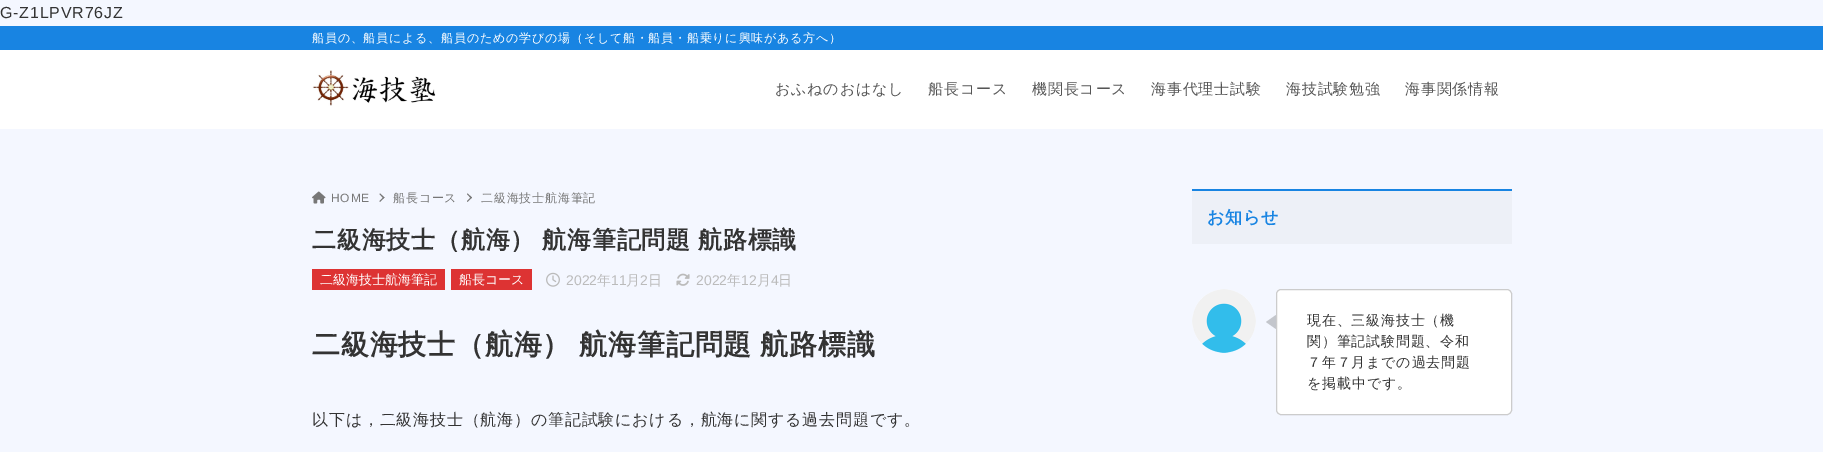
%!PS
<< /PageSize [1823 452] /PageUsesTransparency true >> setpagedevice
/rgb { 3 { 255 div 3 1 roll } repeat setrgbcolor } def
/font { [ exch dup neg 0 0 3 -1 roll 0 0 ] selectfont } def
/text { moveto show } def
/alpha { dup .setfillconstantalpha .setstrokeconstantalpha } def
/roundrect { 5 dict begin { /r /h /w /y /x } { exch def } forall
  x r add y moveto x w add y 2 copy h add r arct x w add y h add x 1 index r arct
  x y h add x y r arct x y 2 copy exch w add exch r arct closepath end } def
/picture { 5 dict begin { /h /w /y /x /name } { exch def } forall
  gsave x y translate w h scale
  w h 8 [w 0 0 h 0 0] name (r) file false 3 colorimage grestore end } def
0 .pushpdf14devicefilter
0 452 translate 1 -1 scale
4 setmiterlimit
244 247 255 rgb
0 0 1823 452 rectfill
255 255 255 rgb
0 50 1823 79 rectfill
24 132 226 rgb
0 26 1823 24 rectfill
(img_01.rgb) 312 70 124 36 picture
(img_02.rgb) 312 191 14 13 picture
119 119 119 rgb
380 193.5 moveto 4.5 4 rlineto -1 1 rlineto -4 -4.5 rlineto closepath fill
383.5 197 moveto 1 0.5 rlineto -4.5 4.5 rlineto -0.5 -1 rlineto closepath fill
467.5 193.5 moveto 4.5 4 rlineto -1 1 rlineto -4 -4.5 rlineto closepath fill
471 197 moveto 1 0.5 rlineto -4.5 4.5 rlineto -0.5 -1 rlineto closepath fill
221 51 51 rgb
312 269 133 21 rectfill
451 269 81 21 rectfill
(img_03.rgb) 546 272 14 15 picture
(img_04.rgb) 676 273 14 13 picture
237 240 247 rgb
1192 191 320 53 rectfill
24 132 226 rgb
1192 189 320 2 rectfill
(img_05.rgb) 1192 289 64 64 picture
255 255 255 rgb
1276 289 236 126 5 roundrect fill
0.2 alpha
0 0 0 rgb
1276.5 289.5 235 125 4.5 roundrect stroke
1 alpha
195 198 204 rgb
1276 315 moveto 0 14 rlineto -10 -7 rlineto closepath fill
/LiberationSans-Regular 16 font
51 51 51 rgb
0 18 moveto 0.8 0 (G-Z1LPVR76JZ) ashow
/WenQuanYiZenHei-Medium 12 font
255 255 255 rgb
312 42 moveto 0.8 0 (船員の、船員による、船員のための学びの場（そして船・船員・船乗りに興味がある方へ）) ashow
/WenQuanYiZenHei-Medium 15 font
85 85 85 rgb
775 94 moveto 0.8 0 (おふねのおはなし) ashow
928 94 moveto 0.8 0 (船長コース) ashow
1032 94 moveto 0.8 0 (機関長コース) ashow
1151 94 moveto 0.8 0 (海事代理士試験) ashow
1286 94 moveto 0.8 0 (海技試験勉強) ashow
1405 94 moveto 0.8 0 (海事関係情報) ashow
/LiberationSans-Regular 12 font
119 119 119 rgb
331 202 moveto 0.8 0 (HOME) ashow
/WenQuanYiZenHei-Medium 12 font
393 202 moveto 0.8 0 (船長コース) ashow
481 202 moveto 0.8 0 (二級海技士航海筆記) ashow
/WenQuanYiZenHei-Bold 24 font
51 51 51 rgb
312 248 moveto -1 0 32 0.8 0 (二級海技士（航海） 航海筆記問題 航路標識) awidthshow
/WenQuanYiZenHei-Medium 13 font
255 255 255 rgb
(二級海技士航海筆記) 320 284 text
(船長コース) 459 284 text
/LiberationSans-Regular 14 font
187 187 187 rgb
(2022) 566 285 text
/WenQuanYiZenHei-Medium 14 font
(年) 597 285 text
/LiberationSans-Regular 14 font
(11) 611 285 text
/WenQuanYiZenHei-Medium 14 font
(月) 626 285 text
/LiberationSans-Regular 14 font
(2) 640 285 text
/WenQuanYiZenHei-Medium 14 font
(日) 648 285 text
/LiberationSans-Regular 14 font
(2022) 696 285 text
/WenQuanYiZenHei-Medium 14 font
(年) 727 285 text
/LiberationSans-Regular 14 font
(12) 741 285 text
/WenQuanYiZenHei-Medium 14 font
(月) 757 285 text
/LiberationSans-Regular 14 font
(4) 771 285 text
/WenQuanYiZenHei-Medium 14 font
(日) 778 285 text
/WenQuanYiZenHei-Bold 28 font
51 51 51 rgb
312 354 moveto -1 0 32 0.8 0 (二級海技士（航海） 航海筆記問題 航路標識) awidthshow
/WenQuanYiZenHei-Medium 16 font
312 425 moveto 0.8 0 (以下は，二級海技士（航海）の筆記試験における，航海に関する過去問題です。) ashow
/WenQuanYiZenHei-Bold 17 font
24 132 226 rgb
1207 223 moveto 0.8 0 (お知らせ) ashow
/WenQuanYiZenHei-Medium 14 font
51 51 51 rgb
1307 325 moveto 0.8 0 (現在、三級海技士（機) ashow
1307 346 moveto 0.8 0 (関）筆記試験問題、令和) ashow
1307 367 moveto 0.8 0 (７年７月までの過去問題) ashow
1307 388 moveto 0.8 0 (を掲載中です。) ashow
.poppdf14devicefilter showpage
